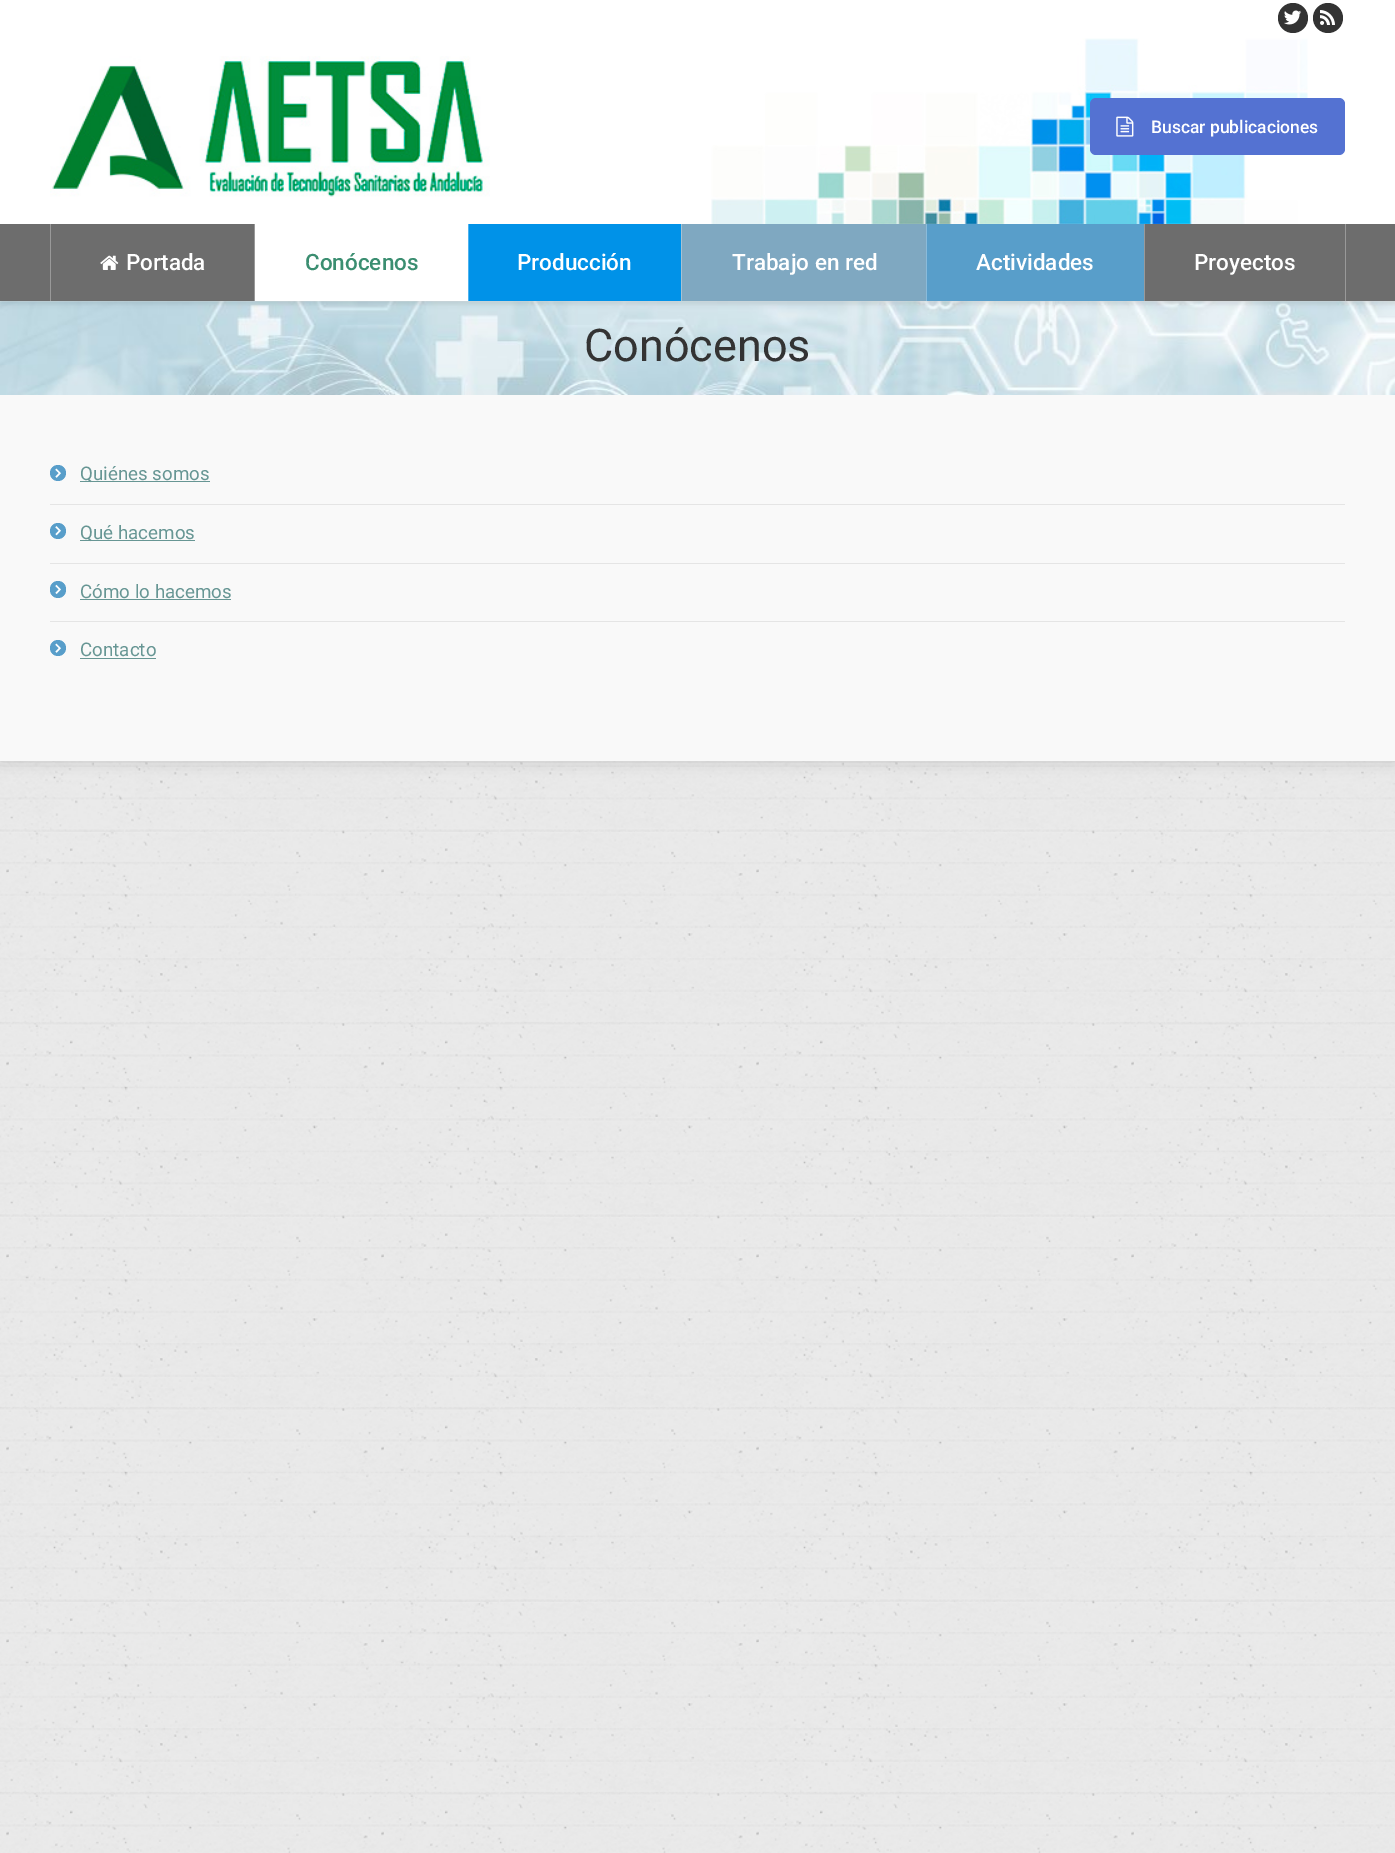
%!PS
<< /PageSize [1395 1853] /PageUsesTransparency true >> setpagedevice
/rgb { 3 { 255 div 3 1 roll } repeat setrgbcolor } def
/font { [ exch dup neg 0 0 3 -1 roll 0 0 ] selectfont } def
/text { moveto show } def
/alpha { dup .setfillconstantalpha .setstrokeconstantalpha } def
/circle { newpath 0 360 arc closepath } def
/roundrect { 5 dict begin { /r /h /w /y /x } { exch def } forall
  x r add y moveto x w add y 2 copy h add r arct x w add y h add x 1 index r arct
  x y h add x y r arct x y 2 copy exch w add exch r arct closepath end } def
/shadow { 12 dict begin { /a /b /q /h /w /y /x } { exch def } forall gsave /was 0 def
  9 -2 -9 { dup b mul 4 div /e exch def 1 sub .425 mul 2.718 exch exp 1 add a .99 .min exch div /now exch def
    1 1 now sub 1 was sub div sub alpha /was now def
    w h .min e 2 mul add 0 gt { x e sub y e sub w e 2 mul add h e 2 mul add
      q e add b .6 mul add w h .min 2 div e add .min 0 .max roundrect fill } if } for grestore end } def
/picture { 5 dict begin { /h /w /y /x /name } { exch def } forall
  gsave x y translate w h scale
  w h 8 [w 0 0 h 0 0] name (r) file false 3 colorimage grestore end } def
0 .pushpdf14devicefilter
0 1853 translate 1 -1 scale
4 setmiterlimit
255 255 255 rgb
0 0 1395 1853 rectfill
(img_01.rgb) 0 761 1395 1092 picture
0 0 0 rgb
0 0 1395 761 0 7.5 0.15 shadow
249 249 249 rgb
0 301 1395 460 rectfill
(img_08.rgb) 0 301 1395 94 picture
0 0 0 rgb
0 0 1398 304 0 2.5 0.1 shadow
255 255 255 rgb
0 0 1395 224 rectfill
51 51 51 rgb
1293 18 15 circle fill
(img_02.rgb) 1284 10 18 15 picture
1328 18 15 circle fill
(img_03.rgb) 1320 10 15 15 picture
(img_04.rgb) 50 56 440 141 picture
(img_05.rgb) 711 38 597 186 picture
84 114 210 rgb
1090 98 255 57 6 roundrect fill
(img_06.rgb) 1116 116 18 21 picture
109 109 109 rgb
0 224 1395 77 rectfill
153 153 153 rgb
50 224 1 77 rectfill
(img_07.rgb) 100 255 19 15 picture
254 224 1 77 rectfill
255 255 255 rgb
255 224 213 77 rectfill
0 146 232 rgb
469 224 212 77 rectfill
77 179 239 rgb
468 224 1 77 rectfill
127 168 193 rgb
682 224 244 77 rectfill
165 194 212 rgb
681 224 1 77 rectfill
88 158 202 rgb
927 224 217 77 rectfill
138 187 218 rgb
926 224 1 77 rectfill
153 153 153 rgb
1144 224 1 77 rectfill
1345 224 1 77 rectfill
88 158 202 rgb
58 473 8 circle fill
103 150 148 rgb
80 481 130 1 rectfill
(img_09.rgb) 55 468 6 10 picture
229 229 229 rgb
50 504 1295 1 rectfill
88 158 202 rgb
58 531 8 circle fill
103 150 148 rgb
80 540 115 1 rectfill
(img_10.rgb) 55 526 6 10 picture
229 229 229 rgb
50 563 1295 1 rectfill
88 158 202 rgb
50 581 16 17 8 roundrect fill
103 150 148 rgb
80 599 151 1 rectfill
(img_11.rgb) 55 584 6 10 picture
229 229 229 rgb
50 621 1295 1 rectfill
88 158 202 rgb
58 648 8 circle fill
103 150 148 rgb
80 658 76 1 rectfill
(img_09.rgb) 55 643 6 10 picture
/Roboto-Medium 17.5 font
255 255 255 rgb
(Buscar publicaciones) 1151 133 text
/Roboto-Medium 22.5 font
(Portada) 126 270 text
59 142 113 rgb
(Conócenos) 305 270 text
255 255 255 rgb
(Producción) 517 270 text
(Trabajo en red) 732 270 text
(Actividades) 976 270 text
(Proyectos) 1194 270 text
/Roboto-Regular 45 font
51 51 51 rgb
(Conócenos) 584 361 text
/Roboto-Regular 18.75 font
103 150 148 rgb
(Quiénes somos) 80 480 text
(Qué hacemos) 80 539 text
(Cómo lo hacemos) 80 598 text
(Contacto) 80 656 text
.poppdf14devicefilter showpage
